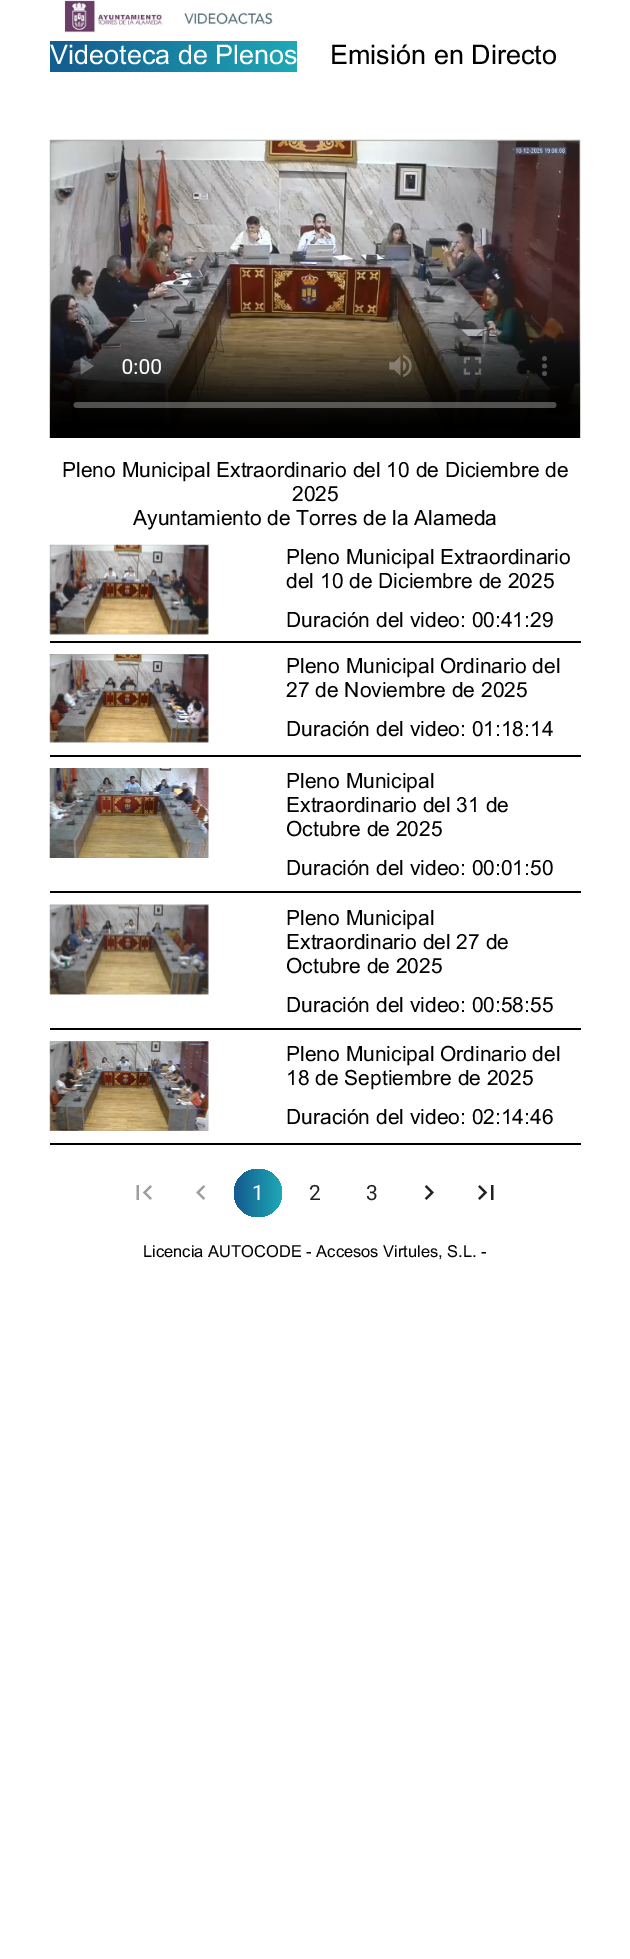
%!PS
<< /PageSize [630 1959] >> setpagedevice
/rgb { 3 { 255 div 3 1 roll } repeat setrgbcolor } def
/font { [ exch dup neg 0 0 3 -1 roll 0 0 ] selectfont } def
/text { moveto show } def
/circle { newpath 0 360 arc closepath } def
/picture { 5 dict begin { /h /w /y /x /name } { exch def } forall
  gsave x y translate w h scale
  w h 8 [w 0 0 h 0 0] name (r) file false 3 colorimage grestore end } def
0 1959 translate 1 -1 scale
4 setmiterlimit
255 255 255 rgb
0 0 630 1959 rectfill
(img_01.rgb) 63 0 210 33 picture
gsave 50 41 moveto 247 0 rlineto 0 31 rlineto -247 0 rlineto closepath clip newpath
<< /ShadingType 2 /ColorSpace /DeviceRGB /Coords [50 56 297 56] /Extend [true true] /Function << /FunctionType 3 /Domain [0 1] /Functions [<< /FunctionType 2 /Domain [0 1] /C0 [0.078 0.373 0.569] /C1 [0.078 0.373 0.569] /N 1 >> << /FunctionType 2 /Domain [0 1] /C0 [0.078 0.373 0.569] /C1 [0.118 0.663 0.714] /N 1 >>] /Bounds [0.08] /Encode [0 1 0 1] >> >> shfill grestore
(img_02.rgb) 49 139 532 299 picture
0 0 0 rgb
50 641 531 2 rectfill
(img_03.rgb) 49 544 160 91 picture
50 755 531 2 rectfill
(img_04.rgb) 49 654 160 89 picture
50 891 531 2 rectfill
(img_05.rgb) 49 768 160 90 picture
50 1028 531 2 rectfill
(img_06.rgb) 49 904 160 91 picture
50 1143 531 2 rectfill
(img_07.rgb) 49 1041 160 90 picture
(img_08.rgb) 136 1185 16 15 picture
(img_09.rgb) 196 1185 10 15 picture
gsave 258 1193 24 circle clip newpath
<< /ShadingType 2 /ColorSpace /DeviceRGB /Coords [234 1193 282 1193] /Extend [true true] /Function << /FunctionType 3 /Domain [0 1] /Functions [<< /FunctionType 2 /Domain [0 1] /C0 [0.078 0.373 0.569] /C1 [0.078 0.373 0.569] /N 1 >> << /FunctionType 2 /Domain [0 1] /C0 [0.078 0.373 0.569] /C1 [0.118 0.663 0.714] /N 1 >>] /Bounds [0.08] /Encode [0 1 0 1] >> >> shfill grestore
(img_10.rgb) 424 1185 10 15 picture
(img_11.rgb) 478 1185 16 15 picture
/Arial-Regular 27 font
255 255 255 rgb
(Videoteca de Plenos) 50 64 text
0 0 0 rgb
(Emisión en Directo) 330 64 text
/Arial-Regular 21 font
(Pleno Municipal Extraordinario del 10 de Diciembre de) 62 477 text
(2025) 292 501 text
(Ayuntamiento de Torres de la Alameda) 133 525 text
(Pleno Municipal Extraordinario) 286 564 text
(del 10 de Diciembre de 2025) 286 588 text
(Duración del video: 00:41:29) 286 627 text
(Pleno Municipal Ordinario del) 286 673 text
(27 de Noviembre de 2025) 286 697 text
(Duración del video: 01:18:14) 286 736 text
(Pleno Municipal) 286 788 text
(Extraordinario del 31 de) 286 812 text
(Octubre de 2025) 286 836 text
(Duración del video: 00:01:50) 286 875 text
(Pleno Municipal) 286 925 text
(Extraordinario del 27 de) 286 949 text
(Octubre de 2025) 286 973 text
(Duración del video: 00:58:55) 286 1012 text
(Pleno Municipal Ordinario del) 286 1061 text
(18 de Septiembre de 2025) 286 1085 text
(Duración del video: 02:14:46) 286 1124 text
/Roboto-Regular 21 font
255 255 255 rgb
(1) 252 1200 text
33 33 33 rgb
(2) 309 1200 text
(3) 366 1200 text
/Arial-Regular 16.5 font
0 0 0 rgb
(Licencia AUTOCODE - Accesos Virtules, S.L. -) 143 1257 text
showpage
